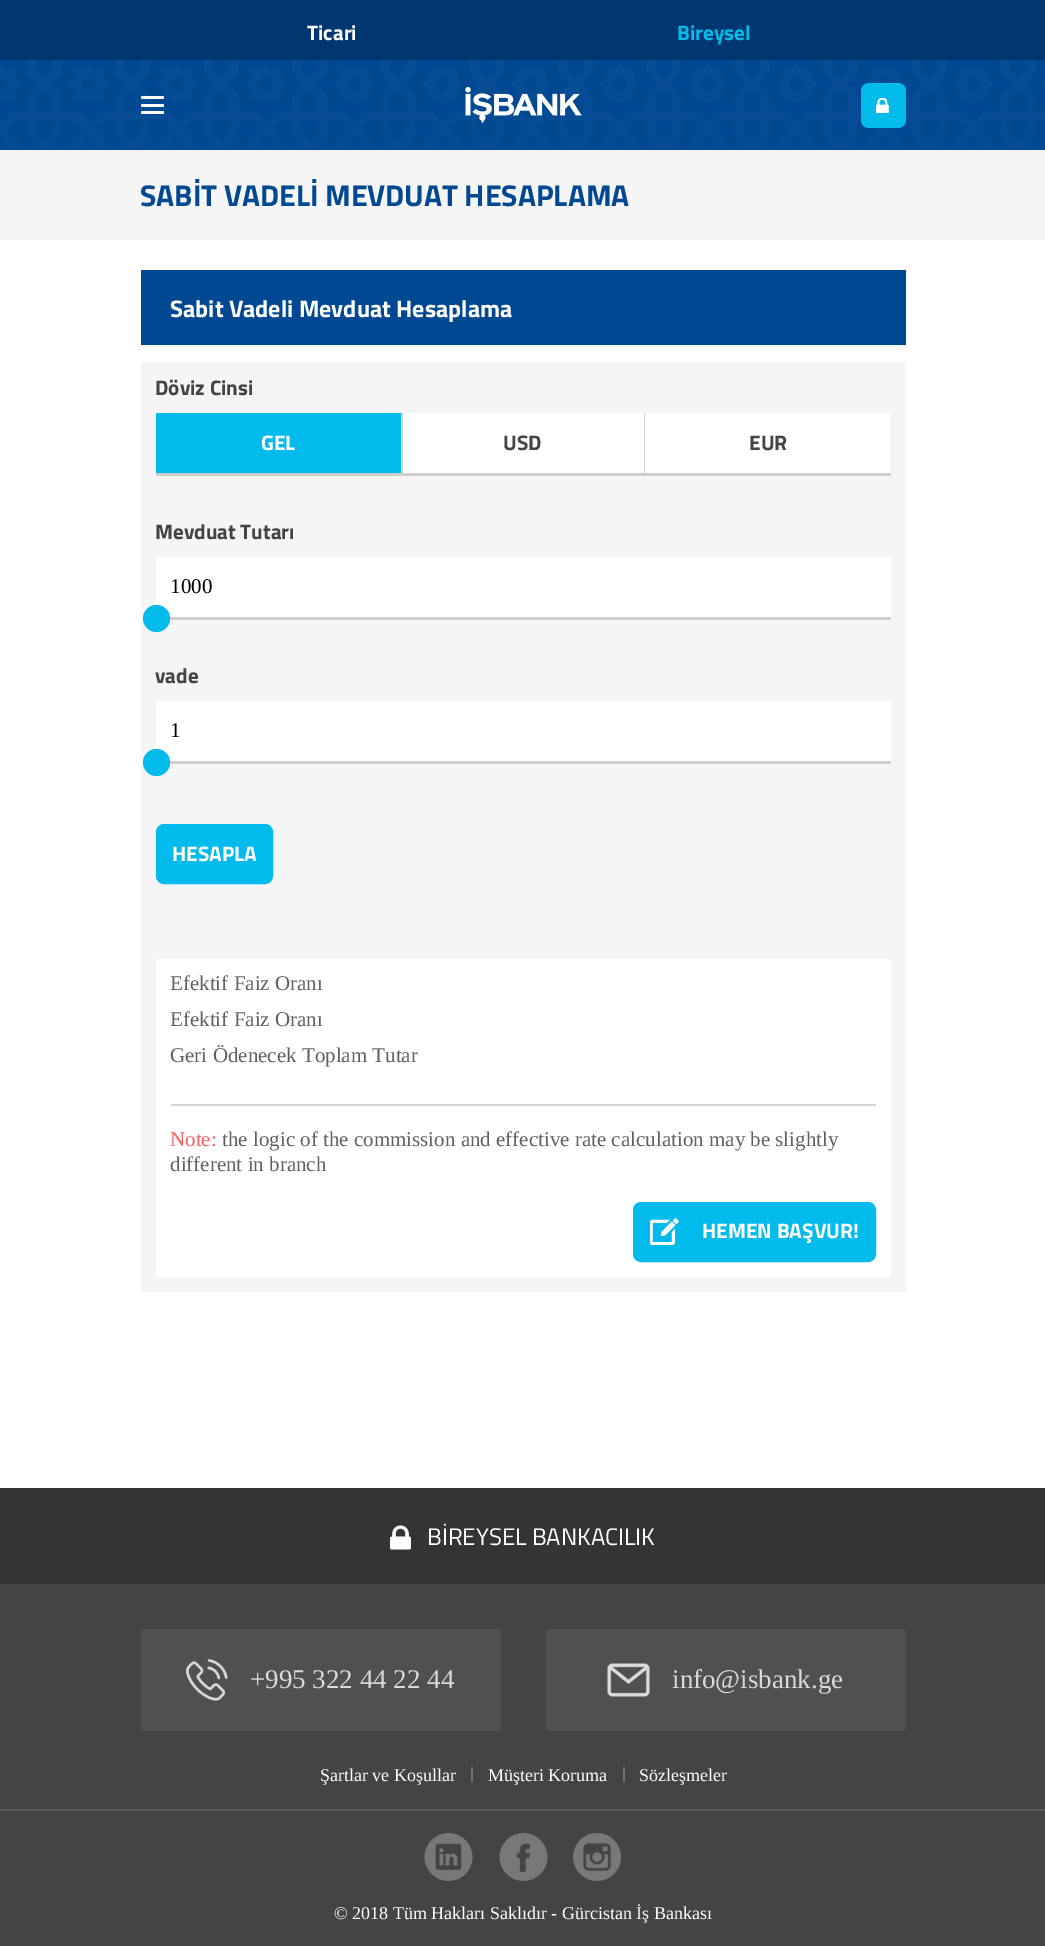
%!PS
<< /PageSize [1045 1946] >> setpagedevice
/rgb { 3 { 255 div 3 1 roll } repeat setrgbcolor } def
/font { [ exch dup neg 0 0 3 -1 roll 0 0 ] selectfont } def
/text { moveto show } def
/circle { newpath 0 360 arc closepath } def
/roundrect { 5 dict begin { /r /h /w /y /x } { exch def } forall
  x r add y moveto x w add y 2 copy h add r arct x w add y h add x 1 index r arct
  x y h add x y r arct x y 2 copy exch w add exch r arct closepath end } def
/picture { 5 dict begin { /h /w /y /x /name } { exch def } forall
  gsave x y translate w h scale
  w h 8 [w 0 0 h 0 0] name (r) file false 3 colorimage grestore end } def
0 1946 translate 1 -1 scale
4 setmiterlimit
255 255 255 rgb
0 0 1045 1946 rectfill
0 55 112 rgb
0 0 1045 60 rectfill
(img_01.rgb) 0 60 1045 90 picture
255 255 255 rgb
141 96 23 3 1.5 roundrect fill
141 104 23 3 1.5 roundrect fill
141 111 23 3 1.5 roundrect fill
(img_02.rgb) 465 87 117 36 picture
0 187 235 rgb
861 83 45 45 8 roundrect fill
(img_03.rgb) 876 98 13 15 picture
245 245 245 rgb
0 150 1045 90 rectfill
0 72 146 rgb
141 270 765 75 rectfill
245 245 245 rgb
141 345 765 2 rectfill
141 362 765 930 rectfill
206 206 206 rgb
156 473 735 3 rectfill
0 187 235 rgb
156 413 245 60 rectfill
255 255 255 rgb
403 413 241 60 rectfill
206 206 206 rgb
644 413 1 60 rectfill
401 413 2 60 rectfill
255 255 255 rgb
645 413 245 60 rectfill
156 557 735 60 rectfill
206 206 206 rgb
156 617 735 3 1.5 roundrect fill
0 187 235 rgb
156.5 618.5 13.5 circle fill
255 255 255 rgb
156 701 735 60 rectfill
206 206 206 rgb
156 761 735 3 1.5 roundrect fill
0 187 235 rgb
156.5 762.5 13.5 circle fill
157 825 115 58 7 roundrect gsave fill grestore
2 setlinewidth
stroke
255 255 255 rgb
156 959 735 318 rectfill
212 212 212 rgb
171 1104 705 2 rectfill
0 187 235 rgb
634 1203 241 58 7 roundrect gsave fill grestore
stroke
(img_04.rgb) 650 1218 29 27 picture
68 68 68 rgb
0 1584 1045 362 rectfill
52 52 52 rgb
0 1488 1045 96 rectfill
(img_05.rgb) 390 1525 21 25 picture
80 80 80 rgb
141 1629 360 102 3 roundrect fill
(img_06.rgb) 186 1659 42 42 picture
546 1629 360 102 3 roundrect fill
(img_07.rgb) 607 1663 43 34 picture
112 112 112 rgb
471 1767 2 15 rectfill
623 1767 2 15 rectfill
90 90 90 rgb
0 1809 1045 2 rectfill
(img_08.rgb) 424 1833 49 48 picture
(img_09.rgb) 499 1833 49 48 picture
(img_10.rgb) 573 1833 48 48 picture
/Cairo-Bold 21 font
255 255 255 rgb
(Ticari) 307 40 text
0 187 235 rgb
(Bireysel) 677 40 text
/Cairo-Bold 30 font
0 72 146 rgb
(SABİT VADELİ MEVDUAT HESAPLAMA) 140 206 text
/Cairo-Bold 24 font
255 255 255 rgb
(Sabit Vadeli Mevduat Hesaplama) 170 317 text
/Cairo-Bold 21 font
68 68 68 rgb
(Döviz Cinsi) 155 395 text
255 255 255 rgb
(GEL) 261 450 text
68 68 68 rgb
(USD) 503 450 text
(EUR) 749 450 text
(Mevduat Tutarı) 155 539 text
/LiberationSerif-Regular 21 font
0 0 0 rgb
(1000) 170 593 text
/Cairo-Bold 21 font
68 68 68 rgb
(vade) 155 683 text
/LiberationSerif-Regular 21 font
0 0 0 rgb
(1) 170 737 text
/Cairo-Bold 21 font
255 255 255 rgb
(HESAPLA) 172 861 text
/LiberationSerif-Regular 21 font
96 96 96 rgb
(Efektif Faiz Oranı) 170 990 text
(Efektif Faiz Oranı) 170 1026 text
(Geri Ödenecek Toplam Tutar) 170 1062 text
251 95 95 rgb
(Note:) 170 1146 text
96 96 96 rgb
(the logic of the commission and effective rate calculation may be slightly) 222 1146 text
(different in branch) 170 1171 text
/Cairo-Bold 21 font
255 255 255 rgb
(HEMEN BAŞVUR!) 702 1238 text
/Cairo-Regular 24 font
(BİREYSEL BANKACILIK) 427 1545 text
/LiberationSerif-Regular 27 font
218 218 218 rgb
(+995 322 44 22 44) 250 1688 text
(info@isbank.ge) 672 1688 text
/LiberationSerif-Regular 18 font
255 255 255 rgb
(Şartlar ve Koşullar) 320 1781 text
(Müşteri Koruma) 488 1781 text
(Sözleşmeler) 639 1781 text
(© 2018 Tüm Hakları Saklıdır - Gürcistan İş Bankası) 334 1919 text
showpage
